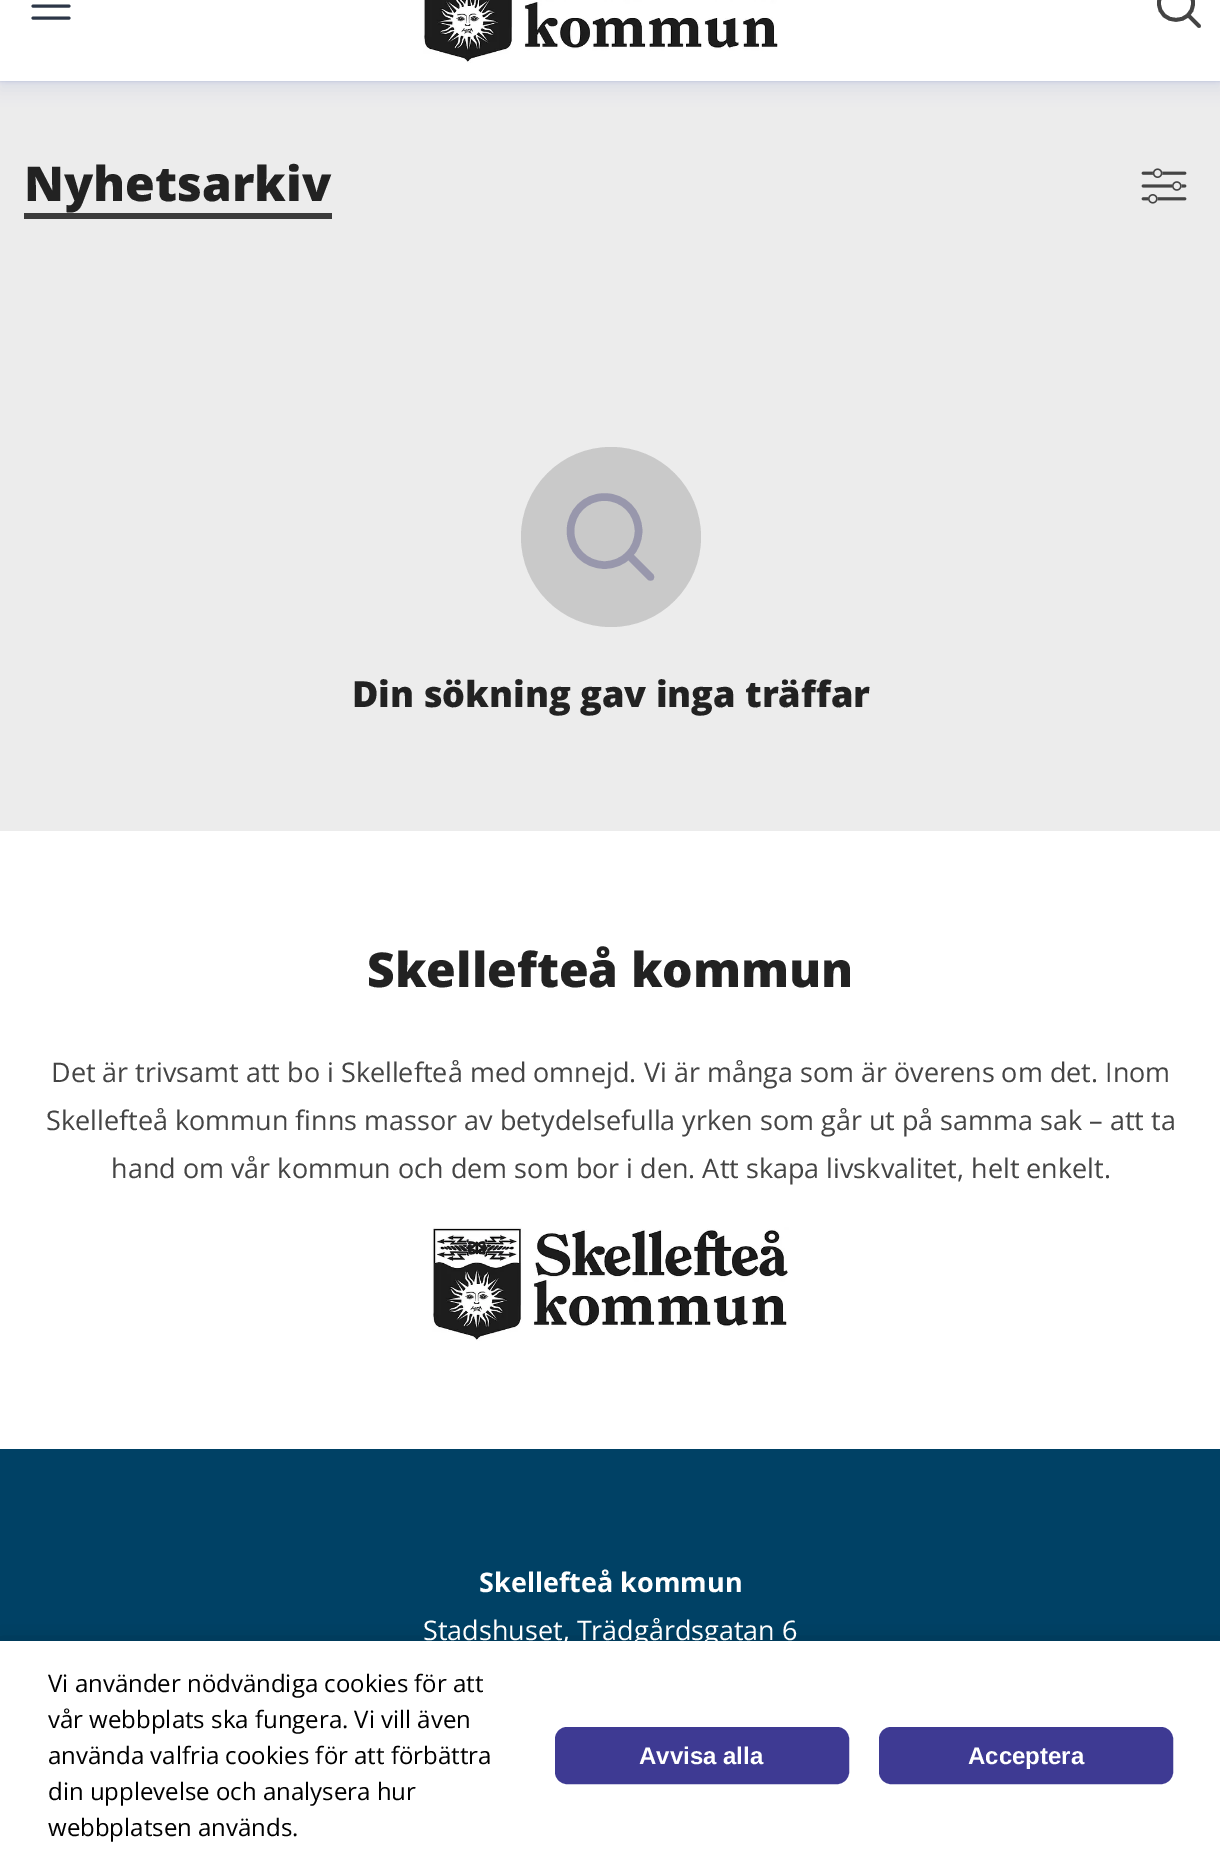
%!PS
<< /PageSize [1220 1869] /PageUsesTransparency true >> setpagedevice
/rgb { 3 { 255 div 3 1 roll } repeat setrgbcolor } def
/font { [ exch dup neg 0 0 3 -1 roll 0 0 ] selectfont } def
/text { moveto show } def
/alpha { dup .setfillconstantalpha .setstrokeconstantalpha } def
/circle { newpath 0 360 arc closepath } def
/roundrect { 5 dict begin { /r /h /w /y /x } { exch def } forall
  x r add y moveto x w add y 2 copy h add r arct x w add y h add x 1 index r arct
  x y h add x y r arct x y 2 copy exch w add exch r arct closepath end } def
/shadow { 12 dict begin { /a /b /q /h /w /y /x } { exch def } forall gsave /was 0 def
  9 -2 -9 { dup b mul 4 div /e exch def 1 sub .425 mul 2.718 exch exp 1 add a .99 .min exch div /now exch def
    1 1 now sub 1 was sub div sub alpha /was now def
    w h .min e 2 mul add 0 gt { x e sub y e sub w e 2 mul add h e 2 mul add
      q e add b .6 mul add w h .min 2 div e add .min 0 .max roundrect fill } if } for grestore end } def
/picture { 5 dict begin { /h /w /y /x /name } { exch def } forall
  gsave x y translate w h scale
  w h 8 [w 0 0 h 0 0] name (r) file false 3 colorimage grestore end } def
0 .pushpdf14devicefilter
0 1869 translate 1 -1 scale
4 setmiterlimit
236 236 236 rgb
0 0 1220 1869 rectfill
49 73 164 rgb
0 -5 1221 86 0 1.5 0.14 shadow
0 -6 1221 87 0 2 0.1 shadow
0 -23 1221 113 0 7.5 0.08 shadow
255 255 255 rgb
0 0 1220 81 rectfill
44 54 71 rgb
3 setlinewidth
1 setlinecap
1 setlinejoin
33 6 moveto 36 0 rlineto 33 -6 moveto 36 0 rlineto 33 18 moveto 36 0 rlineto stroke
(img_01.rgb) 423 0 355 63 picture
68 68 68 rgb
3.8 setlinewidth
0 setlinejoin
1193 3 moveto 0 22.5 -34 22.5 -34 0 rcurveto 0 -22.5 34 -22.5 34 0 rcurveto closepath 1199 26 moveto -11 -11 rlineto stroke
59 59 59 rgb
24 213 308 6 rectfill
(img_02.rgb) 1141 168 46 36 picture
201 201 201 rgb
611 537 90 circle fill
152 151 172 rgb
7.5 setlinewidth
638.5 531 moveto 0 19 -15 34 -34 34 rcurveto -19 0 -34 -15 -34 -34 rcurveto 0 -19 15 -34 34 -34 rcurveto 19 0 34 15 34 34 rcurveto closepath 650.5 577 moveto -22 -22 rlineto stroke
255 255 255 rgb
0 831 1220 618 rectfill
(img_03.rgb) 432 1227 357 114 picture
0 65 101 rgb
0 1449 1220 192 rectfill
0 0 0 rgb
0 1649 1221 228 0 11 0.5 shadow
255 255 255 rgb
0 1641 1220 228 rectfill
62 58 147 rgb
556 1728 292 55 11 roundrect gsave fill grestore
2 setlinewidth
0 setlinecap
stroke
880 1728 292 55 11 roundrect gsave fill grestore
stroke
/OpenSans-ExtraBold 48 font
34 34 34 rgb
(Nyhetsarkiv) 24 201 text
/OpenSans-ExtraBold 36 font
(Din sökning gav inga träffar) 352 707 text
/OpenSans-ExtraBold 48 font
(Skellefteå kommun) 367 987 text
/OpenSans-Regular 27 font
68 68 68 rgb
(Det är trivsamt att bo i Skellefteå med omnejd. Vi är många som är överens om det. Inom) 51 1082 text
(Skellefteå kommun finns massor av betydelsefulla yrken som går ut på samma sak – att ta) 46 1130 text
(hand om vår kommun och dem som bor i den. Att skapa livskvalitet, helt enkelt.) 111 1178 text
/OpenSans-Bold 27 font
255 255 255 rgb
(Skellefteå kommun) 479 1592 text
/OpenSans-Regular 27 font
(Stadshuset, Trädgårdsgatan 6) 423 1640 text
/OpenSans-Regular 24 font
0 0 0 rgb
(Vi använder nödvändiga cookies för att) 48 1692 text
(vår webbplats ska fungera. Vi vill även) 48 1728 text
(använda valfria cookies för att förbättra) 48 1764 text
(din upplevelse och analysera hur) 48 1800 text
(webbplatsen används.) 48 1836 text
/LiberationSans-Bold 24 font
255 255 255 rgb
(Avvisa alla) 639 1764 text
(Acceptera) 968 1764 text
.poppdf14devicefilter showpage
